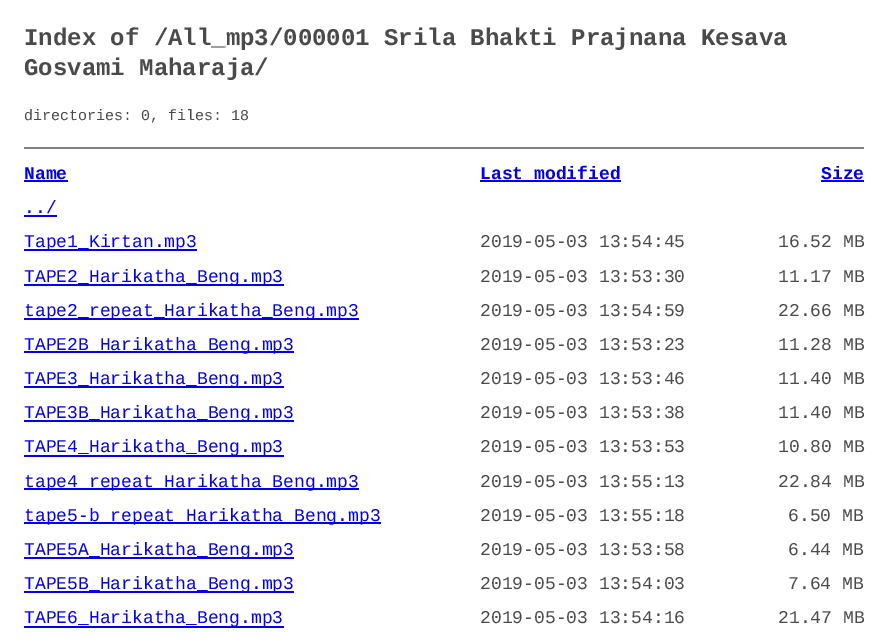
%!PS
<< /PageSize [888 641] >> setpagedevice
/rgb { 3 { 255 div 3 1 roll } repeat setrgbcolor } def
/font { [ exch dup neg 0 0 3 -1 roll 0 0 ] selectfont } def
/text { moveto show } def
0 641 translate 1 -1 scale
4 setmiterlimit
255 255 255 rgb
0 0 888 641 rectfill
128 128 128 rgb
24 147 840 2 rectfill
0 0 238 rgb
24 180 44 2 rectfill
480 180 141 2 rectfill
821 180 43 2 rectfill
24 215 33 2 rectfill
24 249 173 2 rectfill
24 284 260 2 rectfill
24 318 335 2 rectfill
24 351 270 2 rectfill
24 386 260 2 rectfill
24 420 270 2 rectfill
24 455 260 2 rectfill
24 488 335 2 rectfill
24 522 357 2 rectfill
24 557 270 2 rectfill
24 591 270 2 rectfill
24 626 260 2 rectfill
/LiberationMono-Bold 24 font
74 74 74 rgb
(Index of /All_mp3/000001 Srila Bhakti Prajnana Kesava) 24 45 text
(Gosvami Maharaja/) 24 75 text
/LiberationMono-Regular 15 font
(directories: 0, files: 18) 24 120 text
/LiberationMono-Bold 18 font
0 0 238 rgb
(Name) 24 179 text
(Last modified) 480 179 text
(Size) 821 179 text
/LiberationMono-Regular 18 font
(../) 24 213 text
(Tape1_Kirtan.mp3) 24 247 text
74 74 74 rgb
(2019-05-03 13:54:45) 480 247 text
(16.52 MB) 778 247 text
0 0 238 rgb
(TAPE2_Harikatha_Beng.mp3) 24 282 text
74 74 74 rgb
(2019-05-03 13:53:30) 480 282 text
(11.17 MB) 778 282 text
0 0 238 rgb
(tape2_repeat_Harikatha_Beng.mp3) 24 316 text
74 74 74 rgb
(2019-05-03 13:54:59) 480 316 text
(22.66 MB) 778 316 text
0 0 238 rgb
(TAPE2B_Harikatha_Beng.mp3) 24 350 text
74 74 74 rgb
(2019-05-03 13:53:23) 480 350 text
(11.28 MB) 778 350 text
0 0 238 rgb
(TAPE3_Harikatha_Beng.mp3) 24 384 text
74 74 74 rgb
(2019-05-03 13:53:46) 480 384 text
(11.40 MB) 778 384 text
0 0 238 rgb
(TAPE3B_Harikatha_Beng.mp3) 24 418 text
74 74 74 rgb
(2019-05-03 13:53:38) 480 418 text
(11.40 MB) 778 418 text
0 0 238 rgb
(TAPE4_Harikatha_Beng.mp3) 24 452 text
74 74 74 rgb
(2019-05-03 13:53:53) 480 452 text
(10.80 MB) 778 452 text
0 0 238 rgb
(tape4_repeat_Harikatha_Beng.mp3) 24 487 text
74 74 74 rgb
(2019-05-03 13:55:13) 480 487 text
(22.84 MB) 778 487 text
0 0 238 rgb
(tape5-b_repeat_Harikatha_Beng.mp3) 24 521 text
74 74 74 rgb
(2019-05-03 13:55:18) 480 521 text
(6.50 MB) 788 521 text
0 0 238 rgb
(TAPE5A_Harikatha_Beng.mp3) 24 555 text
74 74 74 rgb
(2019-05-03 13:53:58) 480 555 text
(6.44 MB) 788 555 text
0 0 238 rgb
(TAPE5B_Harikatha_Beng.mp3) 24 589 text
74 74 74 rgb
(2019-05-03 13:54:03) 480 589 text
(7.64 MB) 788 589 text
0 0 238 rgb
(TAPE6_Harikatha_Beng.mp3) 24 623 text
74 74 74 rgb
(2019-05-03 13:54:16) 480 623 text
(21.47 MB) 778 623 text
showpage
